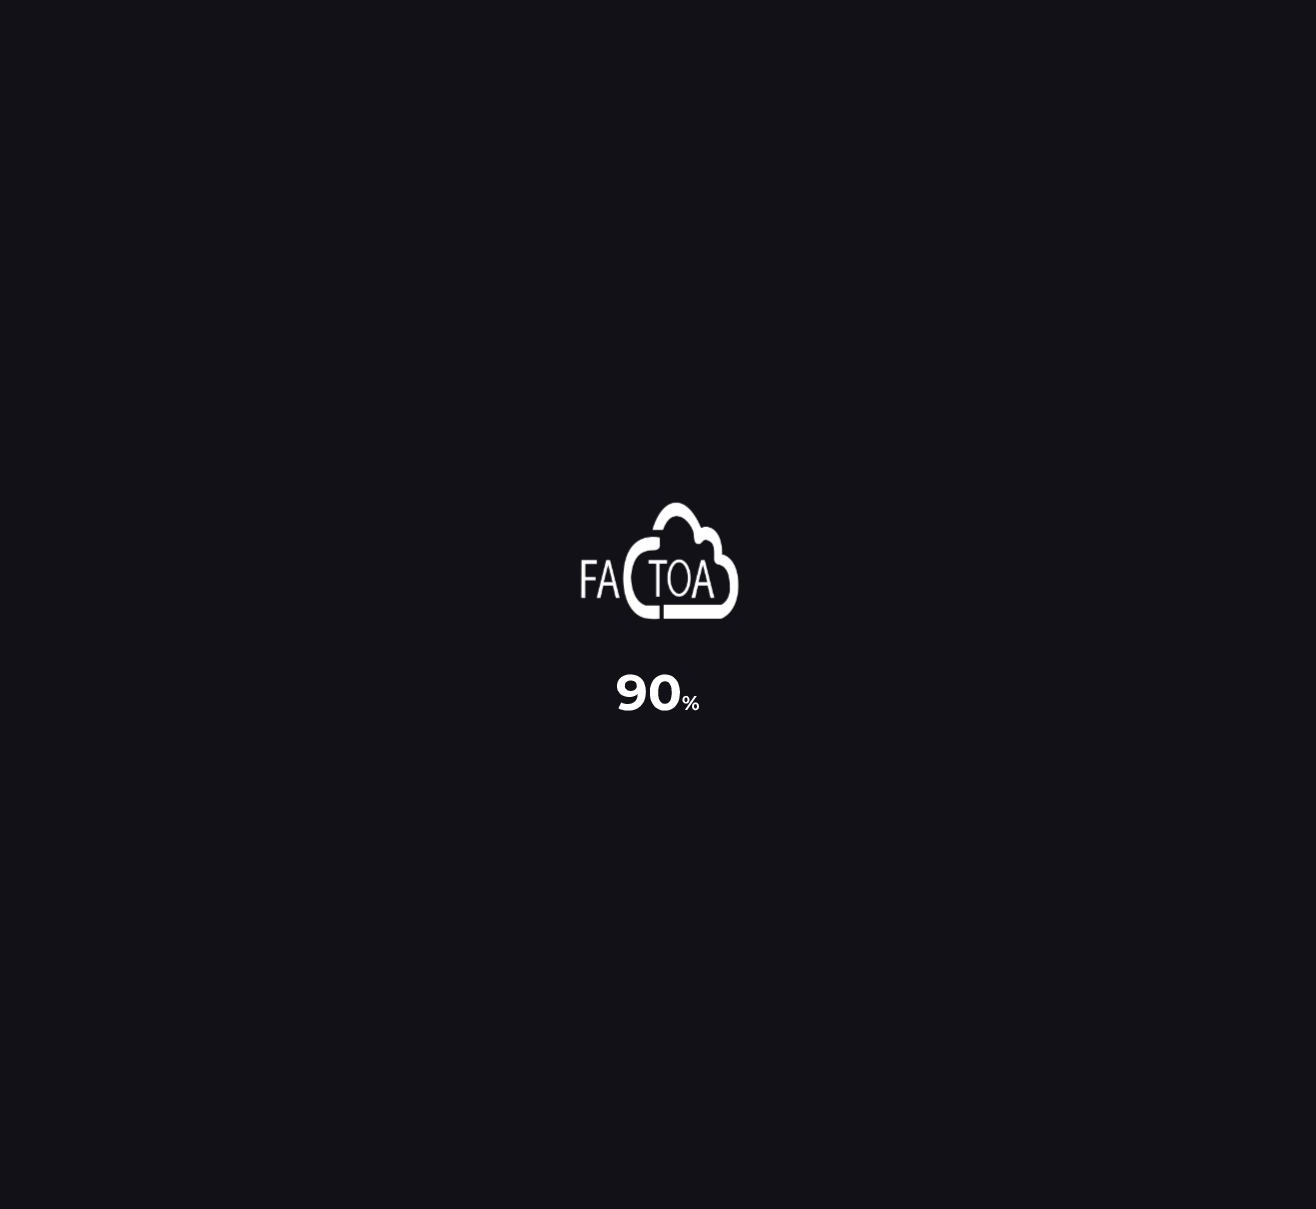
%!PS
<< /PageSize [1316 1209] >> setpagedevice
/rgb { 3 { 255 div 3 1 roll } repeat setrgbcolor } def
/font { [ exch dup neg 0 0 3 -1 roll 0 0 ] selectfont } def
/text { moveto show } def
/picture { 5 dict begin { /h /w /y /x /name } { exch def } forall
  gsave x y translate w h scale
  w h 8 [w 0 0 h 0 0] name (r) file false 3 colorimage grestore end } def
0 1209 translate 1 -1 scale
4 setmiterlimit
17 17 23 rgb
0 0 1316 1209 rectfill
(img_01.rgb) 580 501 159 119 picture
/Montserrat-Bold 50 font
255 255 255 rgb
(90) 616 710 text
/Montserrat-Bold 20 font
(%) 682 710 text
showpage
